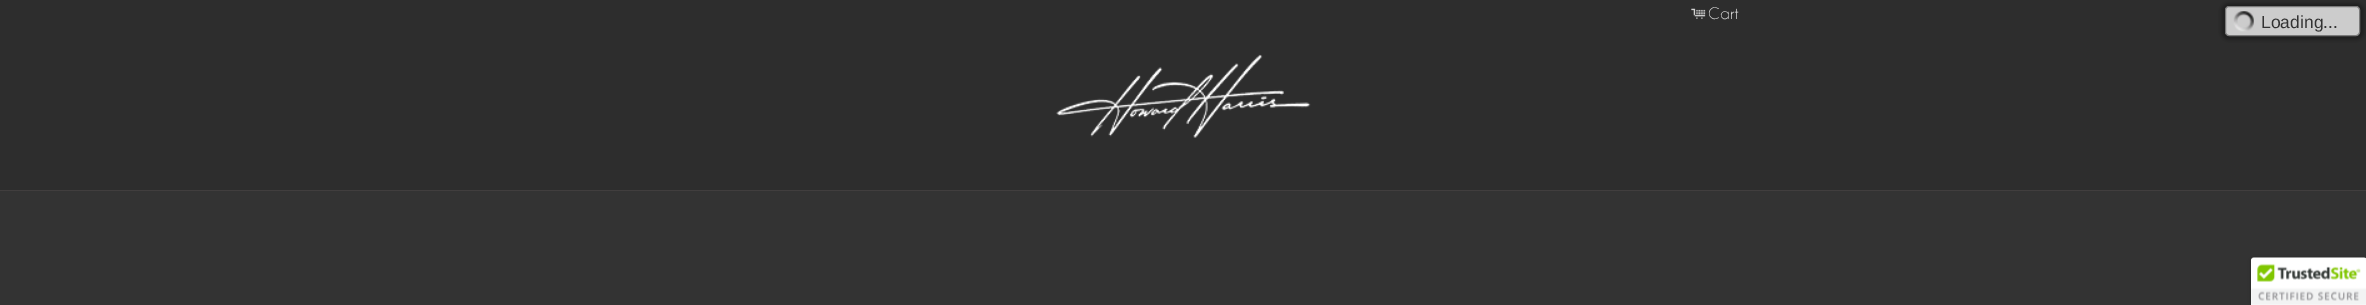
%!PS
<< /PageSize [2366 305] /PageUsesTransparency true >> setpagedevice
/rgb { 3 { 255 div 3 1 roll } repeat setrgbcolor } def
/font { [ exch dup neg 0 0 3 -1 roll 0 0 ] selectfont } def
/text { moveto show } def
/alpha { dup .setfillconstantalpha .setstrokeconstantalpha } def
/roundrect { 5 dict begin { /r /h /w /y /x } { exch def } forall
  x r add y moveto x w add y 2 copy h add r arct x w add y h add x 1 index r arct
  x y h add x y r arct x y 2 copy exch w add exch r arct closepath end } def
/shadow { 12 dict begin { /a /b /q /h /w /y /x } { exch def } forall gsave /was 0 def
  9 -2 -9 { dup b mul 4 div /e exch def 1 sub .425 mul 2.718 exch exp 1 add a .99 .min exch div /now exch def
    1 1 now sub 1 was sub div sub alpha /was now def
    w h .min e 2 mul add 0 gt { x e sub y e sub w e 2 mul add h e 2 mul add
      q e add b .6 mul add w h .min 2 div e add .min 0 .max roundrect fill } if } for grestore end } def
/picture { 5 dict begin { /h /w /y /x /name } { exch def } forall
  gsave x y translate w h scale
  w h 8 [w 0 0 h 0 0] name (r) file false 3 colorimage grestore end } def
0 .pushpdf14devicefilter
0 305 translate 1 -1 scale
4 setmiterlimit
51 51 51 rgb
0 0 2366 305 rectfill
45 45 45 rgb
0 0 2366 190 rectfill
65 62 62 rgb
0 190 2366 1 rectfill
(img_01.rgb) 1691 8 15 11 picture
(img_02.rgb) 1056 54 255 84 picture
0 0 0 rgb
2221 3 143 37 8 2 0.3 shadow
204 204 204 rgb
2225.5 6.5 134 29 3.5 roundrect gsave fill grestore
122 122 122 rgb
stroke
(img_03.rgb) 2233 11 21 21 picture
0 0 0 rgb
2251 258 115 47 2.5 3 0.2 shadow
255 255 255 rgb
2253.5 258 moveto 112.5 0 rlineto 0 47 rlineto -115 0 rlineto 0 -44.5 rlineto 0 -1.5 1 -2.5 2.5 -2.5 rcurveto closepath fill
(img_04.rgb) 2251 257 115 48 picture
/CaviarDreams-Light 15 font
221 221 221 rgb
(Cart) 1708 19 text
/LiberationSans-Regular 17.5 font
51 51 51 rgb
(Loading...) 2261 28 text
.poppdf14devicefilter showpage
